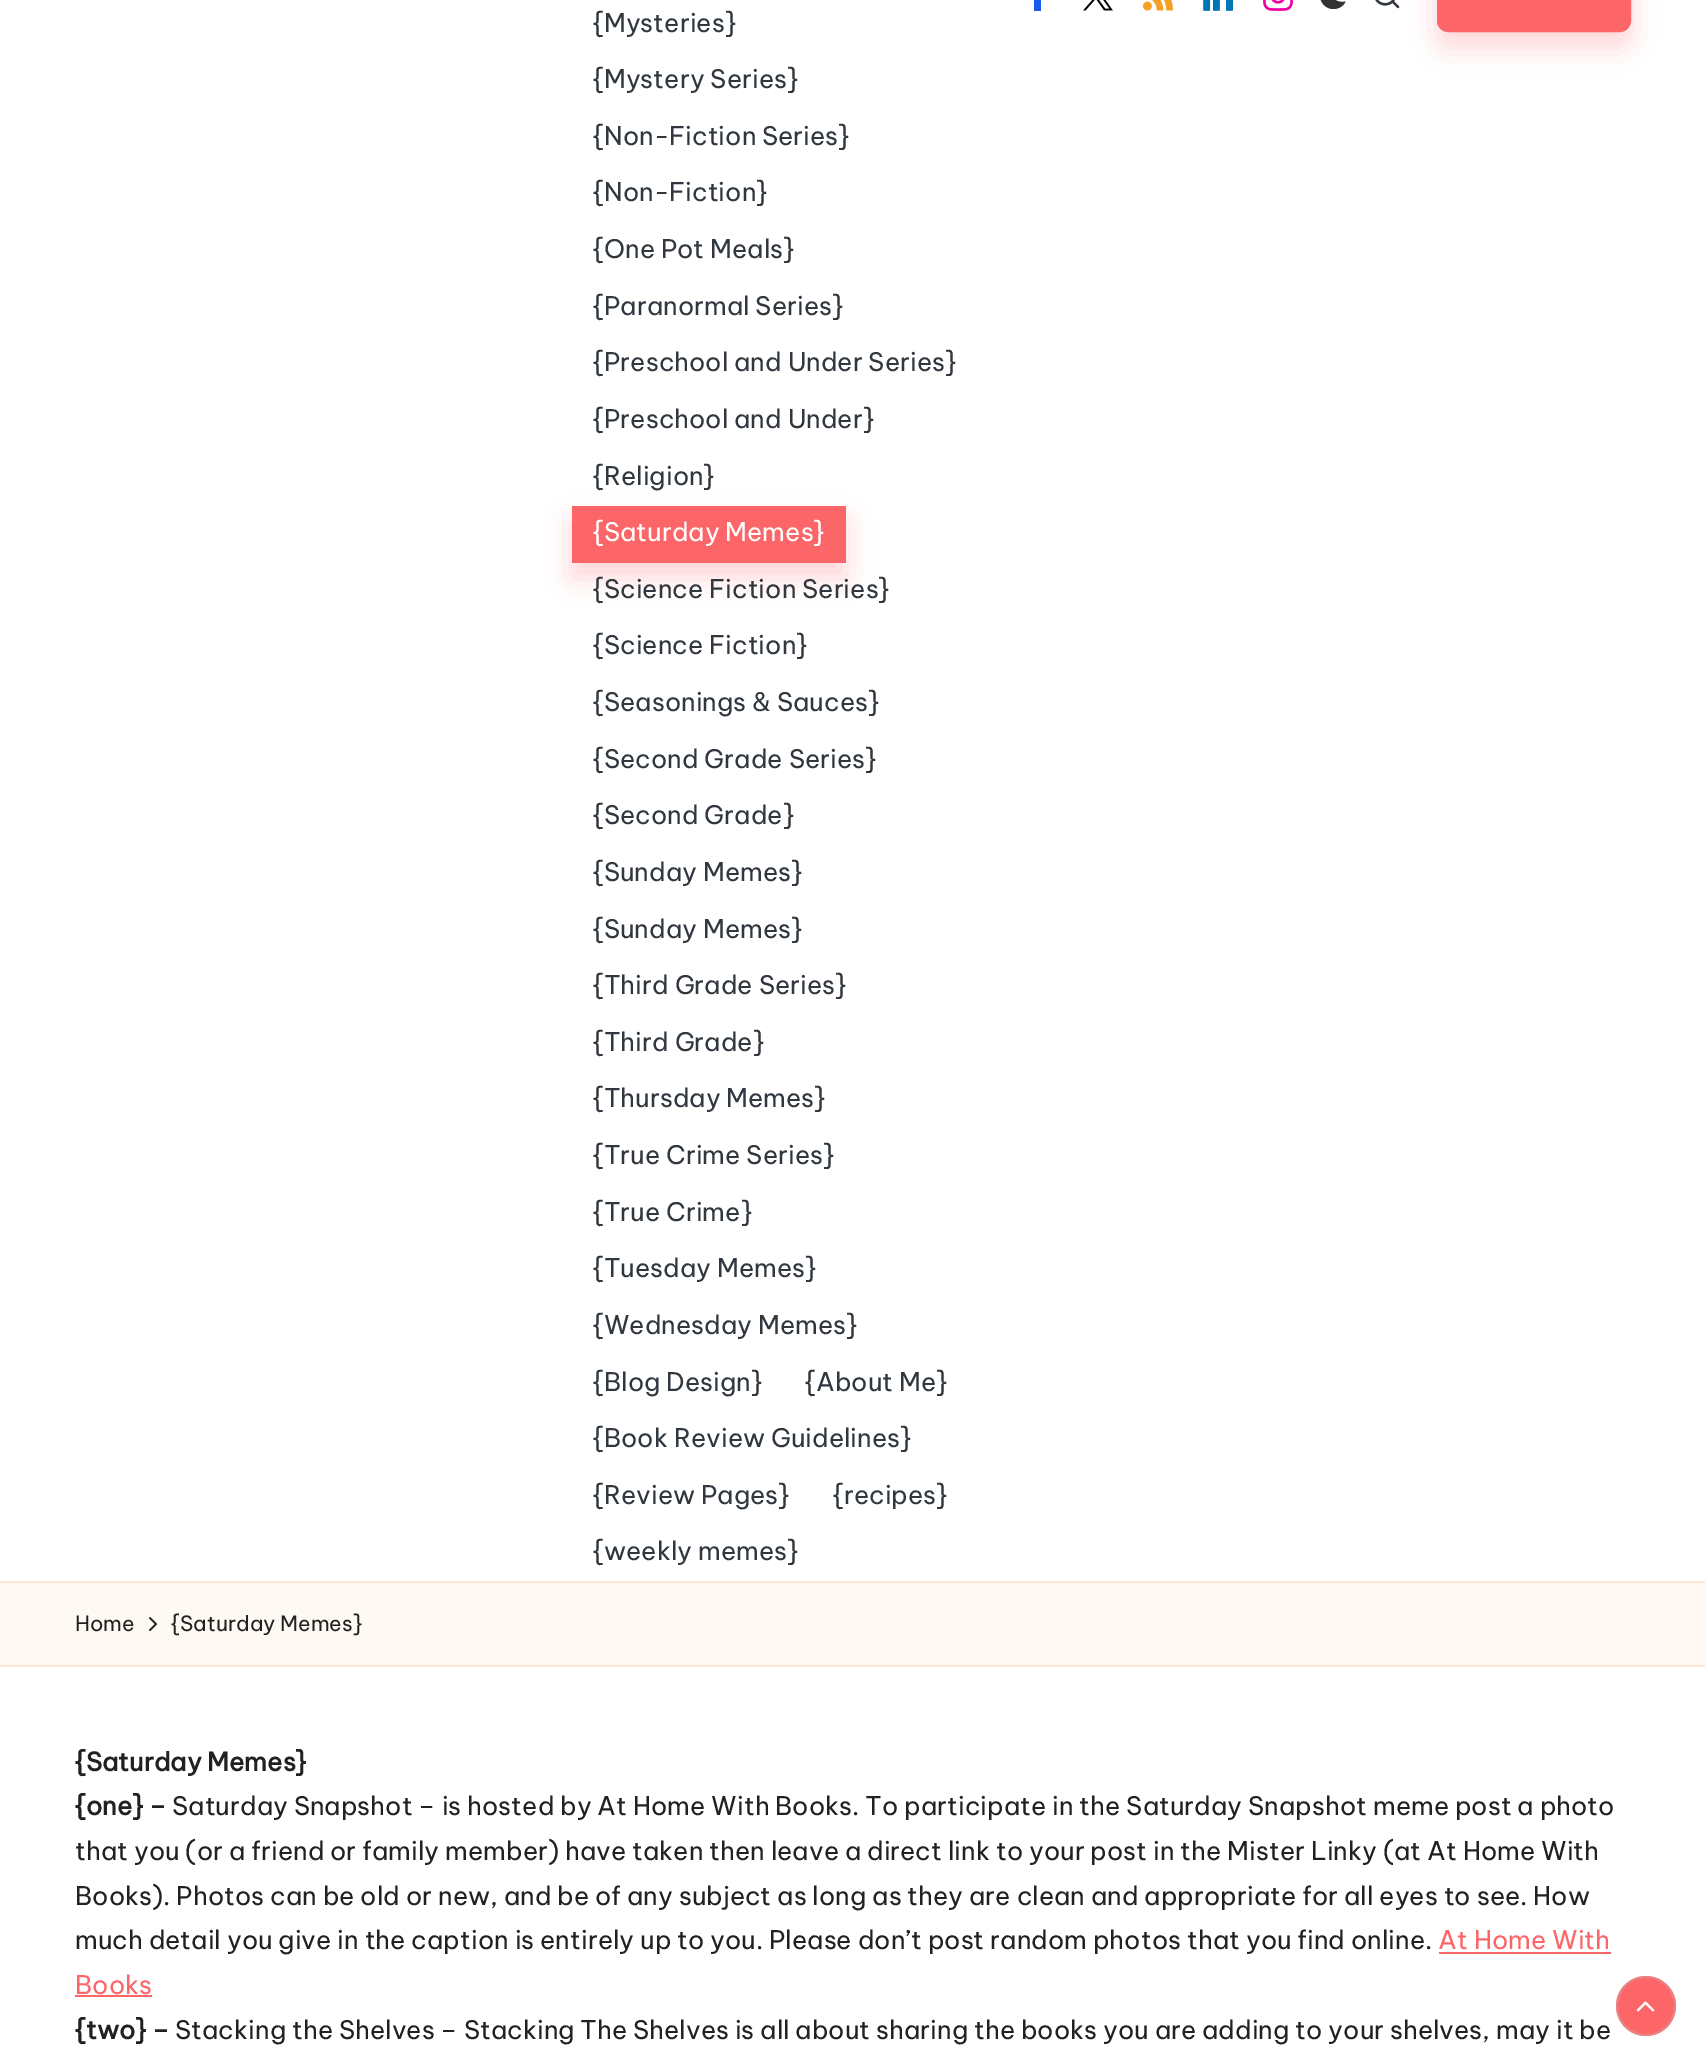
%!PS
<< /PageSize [1705 2072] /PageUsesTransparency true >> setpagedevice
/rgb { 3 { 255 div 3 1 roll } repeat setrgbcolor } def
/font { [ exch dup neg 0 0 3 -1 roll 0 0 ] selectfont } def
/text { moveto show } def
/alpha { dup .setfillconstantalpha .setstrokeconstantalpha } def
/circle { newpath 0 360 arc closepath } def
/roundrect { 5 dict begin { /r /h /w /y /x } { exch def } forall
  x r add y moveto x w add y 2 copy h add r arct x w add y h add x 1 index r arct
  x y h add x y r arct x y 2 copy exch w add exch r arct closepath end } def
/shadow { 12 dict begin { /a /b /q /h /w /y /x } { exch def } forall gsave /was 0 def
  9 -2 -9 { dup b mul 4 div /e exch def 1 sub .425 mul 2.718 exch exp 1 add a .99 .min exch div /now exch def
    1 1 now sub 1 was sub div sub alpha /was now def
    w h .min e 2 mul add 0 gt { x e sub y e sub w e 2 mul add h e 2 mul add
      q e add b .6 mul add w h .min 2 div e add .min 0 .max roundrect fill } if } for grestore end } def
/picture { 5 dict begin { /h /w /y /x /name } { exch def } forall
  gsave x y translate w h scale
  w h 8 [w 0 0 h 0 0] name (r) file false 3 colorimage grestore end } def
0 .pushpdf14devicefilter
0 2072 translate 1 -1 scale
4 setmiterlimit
255 255 255 rgb
0 0 1705 2072 rectfill
252 102 104 rgb
572 521 274 57 0 13.5 0.27 shadow
572 506 274 57 rectfill
23 91 235 rgb
1034 0 7 11 rectfill
(img_01.rgb) 1083 0 30 11 picture
(img_02.rgb) 1143 0 30 11 picture
(img_03.rgb) 1203 0 31 11 picture
(img_04.rgb) 1263 0 30 11 picture
51 51 51 rgb
1345.5 1.5 moveto -11.5 2.5 -19.5 -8.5 -15 -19 rcurveto -6 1 -10.5 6.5 -10.5 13 rcurveto 0 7.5 6 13.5 13.5 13.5 rcurveto 5.5 0 10 -3 12 -7.5 rcurveto closepath fill
(img_05.rgb) 1375 0 25 9 picture
252 102 104 rgb
1437 -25 194 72 11 13.5 0.27 shadow
1438 -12 192 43 10 roundrect gsave fill grestore
2 setlinewidth
stroke
255 249 243 rgb
0 1583 1705 82 rectfill
255 231 210 rgb
0 1581 1705 2 rectfill
0 1665 1705 2 rectfill
(img_06.rgb) 149 1617 8 14 picture
252 102 104 rgb
1439 1952 172 2 rectfill
75 1995 77 2 rectfill
1646 2006 30 circle fill
0.3 alpha
190 190 190 rgb
1646 2006 29 circle stroke
1 alpha
(img_07.rgb) 1636 2001 19 11 picture
/BeVietnamPro-Regular 25.5 font
48 55 62 rgb
({Mysteries}) 593 32 text
({Mystery Series}) 593 88 text
({Non-Fiction Series}) 593 145 text
({Non-Fiction}) 593 201 text
({One Pot Meals}) 593 258 text
({Paranormal Series}) 593 315 text
({Preschool and Under Series}) 593 371 text
({Preschool and Under}) 593 428 text
({Religion}) 593 485 text
255 255 255 rgb
({Saturday Memes}) 593 541 text
48 55 62 rgb
({Science Fiction Series}) 593 598 text
({Science Fiction}) 593 654 text
({Seasonings & Sauces}) 593 711 text
({Second Grade Series}) 593 768 text
({Second Grade}) 593 824 text
({Sunday Memes}) 593 881 text
({Sunday Memes}) 593 938 text
({Third Grade Series}) 593 994 text
({Third Grade}) 593 1051 text
({Thursday Memes}) 593 1107 text
({True Crime Series}) 593 1164 text
({True Crime}) 593 1221 text
({Tuesday Memes}) 593 1277 text
({Wednesday Memes}) 593 1334 text
({Blog Design}) 593 1391 text
({About Me}) 805 1391 text
({Book Review Guidelines}) 593 1447 text
({Review Pages}) 593 1504 text
({recipes}) 833 1504 text
({weekly memes}) 593 1560 text
/BeVietnamPro-Regular 21 font
33 33 33 rgb
(Home) 75 1631 text
({Saturday Memes}) 171 1631 text
/BeVietnamPro-Bold 25.5 font
({Saturday Memes}) 75 1771 text
({one} –) 75 1815 text
/BeVietnamPro-Regular 25.5 font
(Saturday Snapshot – is hosted by At Home With Books. To participate in the Saturday Snapshot meme post a photo) 172 1815 text
(that you \(or a friend or family member\) have taken then leave a direct link to your post in the Mister Linky \(at At Home With) 75 1860 text
(Books\). Photos can be old or new, and be of any subject as long as they are clean and appropriate for all eyes to see. How) 75 1905 text
(much detail you give in the caption is entirely up to you. Please don’t post random photos that you find online.) 75 1949 text
252 102 104 rgb
(At Home With) 1438 1949 text
(Books) 75 1994 text
/BeVietnamPro-Bold 25.5 font
33 33 33 rgb
({two} –) 75 2039 text
/BeVietnamPro-Regular 25.5 font
(Stacking the Shelves – Stacking The Shelves is all about sharing the books you are adding to your shelves, may it be) 175 2039 text
.poppdf14devicefilter showpage
